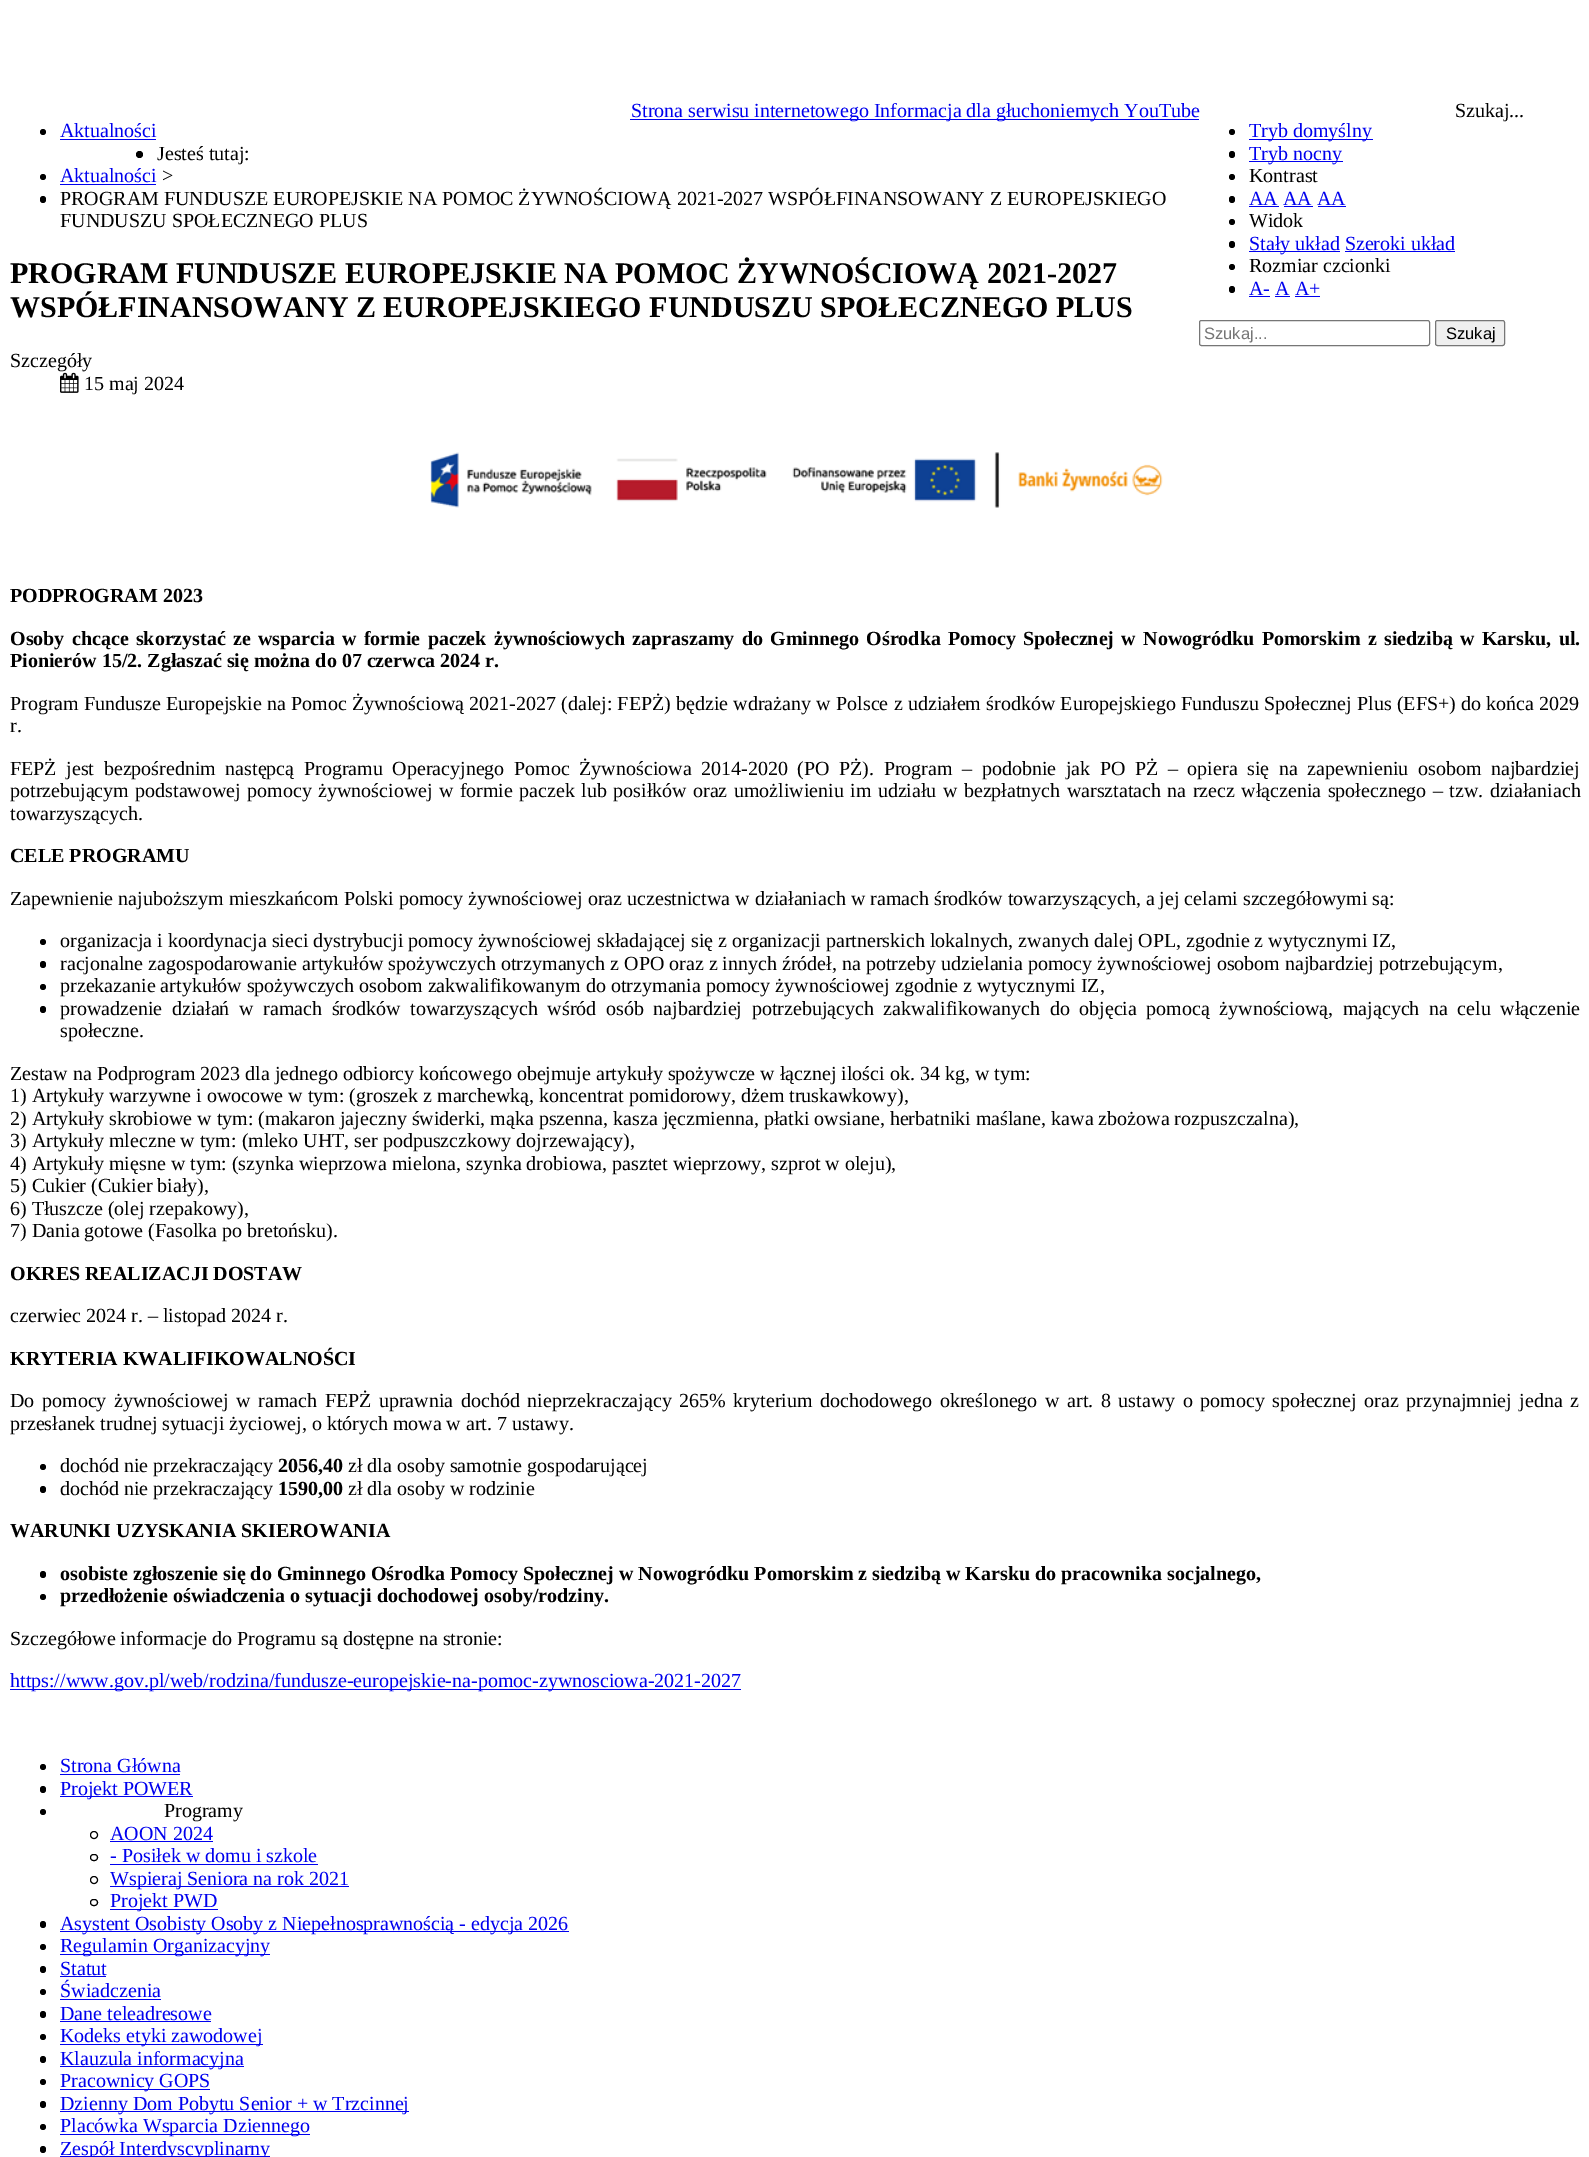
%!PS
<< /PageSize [1589 2157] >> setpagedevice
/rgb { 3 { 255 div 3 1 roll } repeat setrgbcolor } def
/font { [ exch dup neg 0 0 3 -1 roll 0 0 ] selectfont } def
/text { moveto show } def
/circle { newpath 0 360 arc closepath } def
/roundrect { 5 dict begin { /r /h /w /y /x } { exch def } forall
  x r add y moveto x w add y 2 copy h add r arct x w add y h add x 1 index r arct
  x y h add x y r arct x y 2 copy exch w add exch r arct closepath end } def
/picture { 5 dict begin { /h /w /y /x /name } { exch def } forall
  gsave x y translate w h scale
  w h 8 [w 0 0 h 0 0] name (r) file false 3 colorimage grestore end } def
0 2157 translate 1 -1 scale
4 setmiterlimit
255 255 255 rgb
0 0 1589 2157 rectfill
0 0 238 rgb
630 119 569 1 rectfill
0 0 0 rgb
43 132 3 circle fill
0 0 238 rgb
60 139 96 1 rectfill
118 118 118 rgb
1199.5 320.5 230 25 2 roundrect stroke
239 239 239 rgb
1435.5 320.5 69 25 2 roundrect gsave fill grestore
118 118 118 rgb
stroke
0 0 0 rgb
1232 132 3 circle fill
0 0 238 rgb
1249 139 124 1 rectfill
0 0 0 rgb
1229 151 6 7 3 roundrect fill
0 0 238 rgb
1249 161 94 1 rectfill
0 0 0 rgb
1232 177 3 circle fill
1229 196 6 7 3 roundrect fill
0 0 238 rgb
1249 206 30 1 rectfill
1284 206 29 1 rectfill
1318 206 28 1 rectfill
0 0 0 rgb
1232 222 3 circle fill
1229 241 6 7 3 roundrect fill
0 0 238 rgb
1249 251 91 1 rectfill
1345 251 110 1 rectfill
0 0 0 rgb
1232 267 3 circle fill
1229 286 6 7 3 roundrect fill
0 0 238 rgb
1249 296 21 1 rectfill
1275 296 15 1 rectfill
1295 296 25 1 rectfill
0 0 0 rgb
139.5 154.5 3.5 circle fill
43 177 3 circle fill
0 0 238 rgb
60 184 96 1 rectfill
0 0 0 rgb
40 196 6 7 3 roundrect fill
(img_01.rgb) 60 372 19 21 picture
(img_02.rgb) 430 452 733 56 picture
43 942 3 circle fill
40 961 6 7 3 roundrect fill
43 987 3 circle fill
40 1006 6 7 3 roundrect fill
43 1467 3 circle fill
40 1486 6 7 3 roundrect fill
40 1571 6 7 3 roundrect fill
43 1597 3 circle fill
0 0 238 rgb
10 1689 731 1 rectfill
0 0 0 rgb
43 1767 3 circle fill
0 0 238 rgb
60 1774 120 1 rectfill
0 0 0 rgb
40 1786 6 7 3 roundrect fill
0 0 238 rgb
60 1796 133 1 rectfill
0 0 0 rgb
43 1812 3 circle fill
94 1835 3.5 circle stroke
0 0 238 rgb
110 1841 103 1 rectfill
0 0 0 rgb
90.5 1854.5 7 6 3 roundrect stroke
0 0 238 rgb
110 1864 208 1 rectfill
0 0 0 rgb
94 1880 3.5 circle stroke
0 0 238 rgb
110 1886 239 1 rectfill
0 0 0 rgb
90.5 1899.5 7 6 3 roundrect stroke
0 0 238 rgb
110 1909 108 1 rectfill
0 0 0 rgb
40 1921 6 7 3 roundrect fill
0 0 238 rgb
60 1931 509 1 rectfill
0 0 0 rgb
43 1947 3 circle fill
0 0 238 rgb
60 1954 210 1 rectfill
0 0 0 rgb
40 1966 6 7 3 roundrect fill
0 0 238 rgb
60 1976 46 1 rectfill
0 0 0 rgb
43 1992 3 circle fill
0 0 238 rgb
60 1999 101 1 rectfill
0 0 0 rgb
40 2011 6 7 3 roundrect fill
0 0 238 rgb
60 2021 151 1 rectfill
0 0 0 rgb
43 2037 3 circle fill
0 0 238 rgb
60 2044 203 1 rectfill
0 0 0 rgb
40 2056 6 7 3 roundrect fill
0 0 238 rgb
60 2066 184 1 rectfill
0 0 0 rgb
43 2082 3 circle fill
0 0 238 rgb
60 2089 150 1 rectfill
0 0 0 rgb
40 2101 6 7 3 roundrect fill
0 0 238 rgb
60 2111 349 1 rectfill
0 0 0 rgb
43 2127 3 circle fill
0 0 238 rgb
60 2134 250 1 rectfill
0 0 0 rgb
40 2146 6 7 3 roundrect fill
0 0 238 rgb
60 2156 210 1 rectfill
/LiberationSerif-Regular 20 font
(Strona serwisu internetowego Informacja dla głuchoniemych YouTube) 631 117 text
(Aktualności) 60 137 text
0 0 0 rgb
(Szukaj...) 1455 117 text
/LiberationSans-Regular 16.5 font
117 117 117 rgb
(Szukaj...) 1204 339 text
0 0 0 rgb
(Szukaj) 1446 339 text
/LiberationSerif-Regular 20 font
0 0 238 rgb
(Tryb domyślny) 1249 137 text
(Tryb nocny) 1249 160 text
0 0 0 rgb
(Kontrast) 1249 182 text
0 0 238 rgb
(AA AA AA) 1249 205 text
0 0 0 rgb
(Widok) 1249 227 text
0 0 238 rgb
(Stały układ Szeroki układ) 1249 250 text
0 0 0 rgb
(Rozmiar czcionki) 1249 272 text
0 0 238 rgb
(A- A A+) 1249 295 text
0 0 0 rgb
(Jesteś tutaj:) 157 160 text
0 0 238 rgb
(Aktualności) 60 182 text
0 0 0 rgb
(>) 162 182 text
(PROGRAM FUNDUSZE EUROPEJSKIE NA POMOC ŻYWNOŚCIOWĄ 2021-2027 WSPÓŁFINANSOWANY Z EUROPEJSKIEGO) 60 205 text
(FUNDUSZU SPOŁECZNEGO PLUS) 60 227 text
/LiberationSerif-Bold 30 font
(PROGRAM FUNDUSZE EUROPEJSKIE NA POMOC ŻYWNOŚCIOWĄ 2021-2027) 10 283 text
(WSPÓŁFINANSOWANY Z EUROPEJSKIEGO FUNDUSZU SPOŁECZNEGO PLUS) 10 317 text
/LiberationSerif-Regular 20 font
(Szczegóły) 10 367 text
(15 maj 2024) 84 390 text
/LiberationSerif-Bold 20 font
(PODPROGRAM 2023) 10 602 text
10 645 moveto 2.3 0 32 (Osoby chcące skorzystać ze wsparcia w formie paczek żywnościowych zapraszamy do Gminnego Ośrodka Pomocy Społecznej w Nowogródku Pomorskim z siedzibą w Karsku, ul.) widthshow
(Pionierów 15/2. Zgłaszać się można do 07 czerwca 2024 r.) 10 667 text
/LiberationSerif-Regular 20 font
10 710 moveto 0.25 0 32 (Program Fundusze Europejskie na Pomoc Żywnościową 2021-2027 \(dalej: FEPŻ\) będzie wdrażany w Polsce z udziałem środków Europejskiego Funduszu Społecznej Plus \(EFS+\) do końca 2029) widthshow
(r.) 10 732 text
10 775 moveto 4.6 0 32 (FEPŻ jest bezpośrednim następcą Programu Operacyjnego Pomoc Żywnościowa 2014-2020 \(PO PŻ\). Program – podobnie jak PO PŻ – opiera się na zapewnieniu osobom najbardziej) widthshow
10 797 moveto 1.4 0 32 (potrzebującym podstawowej pomocy żywnościowej w formie paczek lub posiłków oraz umożliwieniu im udziału w bezpłatnych warsztatach na rzecz włączenia społecznego – tzw. działaniach) widthshow
(towarzyszących.) 10 820 text
/LiberationSerif-Bold 20 font
(CELE PROGRAMU) 10 862 text
/LiberationSerif-Regular 20 font
(Zapewnienie najuboższym mieszkańcom Polski pomocy żywnościowej oraz uczestnictwa w działaniach w ramach środków towarzyszących, a jej celami szczegółowymi są:) 10 905 text
(organizacja i koordynacja sieci dystrybucji pomocy żywnościowej składającej się z organizacji partnerskich lokalnych, zwanych dalej OPL, zgodnie z wytycznymi IZ,) 60 947 text
(racjonalne zagospodarowanie artykułów spożywczych otrzymanych z OPO oraz z innych źródeł, na potrzeby udzielania pomocy żywnościowej osobom najbardziej potrzebującym,) 60 970 text
(przekazanie artykułów spożywczych osobom zakwalifikowanym do otrzymania pomocy żywnościowej zgodnie z wytycznymi IZ,) 60 992 text
60 1015 moveto 4.6 0 32 (prowadzenie działań w ramach środków towarzyszących wśród osób najbardziej potrzebujących zakwalifikowanych do objęcia pomocą żywnościową, mających na celu włączenie) widthshow
(społeczne.) 60 1037 text
(Zestaw na Podprogram 2023 dla jednego odbiorcy końcowego obejmuje artykuły spożywcze w łącznej ilości ok. 34 kg, w tym:) 10 1080 text
(1\) Artykuły warzywne i owocowe w tym: \(groszek z marchewką, koncentrat pomidorowy, dżem truskawkowy\),) 10 1102 text
(2\) Artykuły skrobiowe w tym: \(makaron jajeczny świderki, mąka pszenna, kasza jęczmienna, płatki owsiane, herbatniki maślane, kawa zbożowa rozpuszczalna\),) 10 1125 text
(3\) Artykuły mleczne w tym: \(mleko UHT, ser podpuszczkowy dojrzewający\),) 10 1147 text
(4\) Artykuły mięsne w tym: \(szynka wieprzowa mielona, szynka drobiowa, pasztet wieprzowy, szprot w oleju\),) 10 1170 text
(5\) Cukier \(Cukier biały\),) 10 1192 text
(6\) Tłuszcze \(olej rzepakowy\),) 10 1215 text
(7\) Dania gotowe \(Fasolka po bretońsku\).) 10 1237 text
/LiberationSerif-Bold 20 font
(OKRES REALIZACJI DOSTAW) 10 1280 text
/LiberationSerif-Regular 20 font
(czerwiec 2024 r. – listopad 2024 r.) 10 1322 text
/LiberationSerif-Bold 20 font
(KRYTERIA KWALIFIKOWALNOŚCI) 10 1365 text
/LiberationSerif-Regular 20 font
10 1407 moveto 2.6 0 32 (Do pomocy żywnościowej w ramach FEPŻ uprawnia dochód nieprzekraczający 265% kryterium dochodowego określonego w art. 8 ustawy o pomocy społecznej oraz przynajmniej jedna z) widthshow
(przesłanek trudnej sytuacji życiowej, o których mowa w art. 7 ustawy.) 10 1430 text
(dochód nie przekraczający) 60 1472 text
/LiberationSerif-Bold 20 font
(2056,40) 278 1472 text
/LiberationSerif-Regular 20 font
(zł dla osoby samotnie gospodarującej) 348 1472 text
(dochód nie przekraczający) 60 1495 text
/LiberationSerif-Bold 20 font
(1590,00) 278 1495 text
/LiberationSerif-Regular 20 font
(zł dla osoby w rodzinie) 348 1495 text
/LiberationSerif-Bold 20 font
(WARUNKI UZYSKANIA SKIEROWANIA) 10 1537 text
(osobiste zgłoszenie się do Gminnego Ośrodka Pomocy Społecznej w Nowogródku Pomorskim z siedzibą w Karsku do pracownika socjalnego,) 60 1580 text
(przedłożenie oświadczenia o sytuacji dochodowej osoby/rodziny.) 60 1602 text
/LiberationSerif-Regular 20 font
(Szczegółowe informacje do Programu są dostępne na stronie:) 10 1645 text
0 0 238 rgb
(https://www.gov.pl/web/rodzina/fundusze-europejskie-na-pomoc-zywnosciowa-2021-2027) 10 1687 text
(Strona Główna) 60 1772 text
(Projekt POWER) 60 1795 text
0 0 0 rgb
(Programy) 164 1817 text
0 0 238 rgb
(AOON 2024) 110 1840 text
(- Posiłek w domu i szkole) 110 1862 text
(Wspieraj Seniora na rok 2021) 110 1885 text
(Projekt PWD) 110 1907 text
(Asystent Osobisty Osoby z Niepełnosprawnością - edycja 2026) 60 1930 text
(Regulamin Organizacyjny) 60 1952 text
(Statut) 60 1975 text
(Świadczenia) 60 1997 text
(Dane teleadresowe) 60 2020 text
(Kodeks etyki zawodowej) 60 2042 text
(Klauzula informacyjna) 60 2065 text
(Pracownicy GOPS) 60 2087 text
(Dzienny Dom Pobytu Senior + w Trzcinnej) 60 2110 text
(Placówka Wsparcia Dziennego) 60 2132 text
(Zespół Interdyscyplinarny) 60 2155 text
showpage
